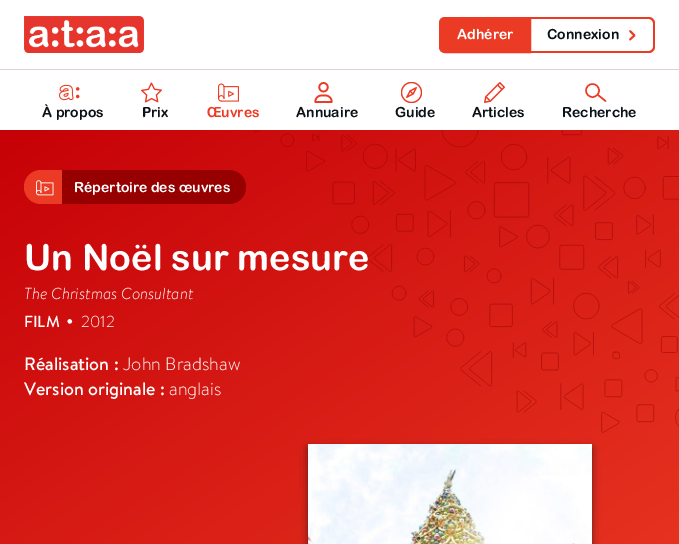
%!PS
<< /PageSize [679 544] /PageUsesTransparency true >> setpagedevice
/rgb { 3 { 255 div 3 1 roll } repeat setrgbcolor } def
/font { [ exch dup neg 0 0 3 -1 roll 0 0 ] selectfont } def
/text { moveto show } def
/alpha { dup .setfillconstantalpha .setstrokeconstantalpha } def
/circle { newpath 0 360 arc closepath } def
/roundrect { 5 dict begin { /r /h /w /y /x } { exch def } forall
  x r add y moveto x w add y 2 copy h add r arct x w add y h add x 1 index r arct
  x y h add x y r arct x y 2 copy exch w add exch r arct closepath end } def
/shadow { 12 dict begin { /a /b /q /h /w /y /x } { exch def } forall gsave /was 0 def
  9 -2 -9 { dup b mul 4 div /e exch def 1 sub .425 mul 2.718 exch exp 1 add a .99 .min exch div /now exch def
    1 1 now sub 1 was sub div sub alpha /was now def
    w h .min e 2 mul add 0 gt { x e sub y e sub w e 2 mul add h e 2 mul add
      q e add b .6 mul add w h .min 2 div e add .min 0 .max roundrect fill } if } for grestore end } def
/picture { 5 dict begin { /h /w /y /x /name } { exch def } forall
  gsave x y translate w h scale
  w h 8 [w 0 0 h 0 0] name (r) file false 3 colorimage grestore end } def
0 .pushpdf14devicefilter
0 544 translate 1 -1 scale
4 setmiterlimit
255 255 255 rgb
0 0 679 544 rectfill
(img_01.rgb) 24 16 120 37 picture
235 59 36 rgb
445 18 moveto 85 0 rlineto 0 34 rlineto -85 0 rlineto -3 0 -5 -2 -5 -5 rcurveto 0 -24 rlineto 0 -3 2 -5 5 -5 rcurveto closepath gsave fill grestore
2 setlinewidth
stroke
531 17 moveto 118 0 rlineto 3 0 6 3 6 6 rcurveto 0 24 rlineto 0 3 -3 6 -6 6 rcurveto -118 0 rlineto closepath 531 19 moveto 118 0 rlineto 2 0 4 2 4 4 rcurveto 0 24 rlineto 0 2 -2 4 -4 4 rcurveto -118 0 rlineto closepath eofill
1.8 setlinewidth
1 setlinecap
1 setlinejoin
630 31 moveto 4.5 4.5 rlineto -4.5 4 rlineto stroke
221 208 208 rgb
0 69 679 1 rectfill
(img_02.rgb) 59 84 21 17 picture
(img_03.rgb) 141 82 21 21 picture
(img_04.rgb) 218 83 21 19 picture
(img_05.rgb) 314 82 19 21 picture
(img_06.rgb) 401 82 21 21 picture
(img_07.rgb) 484 82 21 21 picture
235 59 36 rgb
1.5 setlinewidth
0 setlinecap
0 setlinejoin
592.5 90.5 6.5 circle stroke
1 setlinecap
1 setlinejoin
605.5 101 moveto -7.5 -6 rlineto stroke
gsave
0 130 679 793 rectclip
gsave 0 130 moveto 679 -120 rlineto 0 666 rlineto -679 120 rlineto closepath clip newpath
<< /ShadingType 2 /ColorSpace /DeviceRGB /Coords [110 47 569 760] /Extend [true true] /Function << /FunctionType 2 /Domain [0 1] /C0 [0.773 0 0.027] /C1 [0.922 0.231 0.141] /N 1 >> >> shfill grestore
grestore
41 170 moveto 21 0 rlineto 0 34 rlineto -21 0 rlineto -9.5 0 -17 -7.5 -17 -17 rcurveto 0 -9.5 7.5 -17 17 -17 rcurveto closepath fill
(img_08.rgb) 36 180 18 16 picture
(img_09.rgb) 232 130 447 303 picture
150 0 0 rgb
62 170 moveto 167 0 rlineto 9.5 0 17 7.5 17 17 rcurveto 0 9.5 -7.5 17 -17 17 rcurveto -167 0 rlineto closepath fill
11 17 22 rgb
308 448 284 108 0 4 0.6 shadow
(img_10.rgb) 308 444 284 100 picture
/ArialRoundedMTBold-Bold 14 font
255 255 255 rgb
(Adhérer) 457 39 text
11 17 22 rgb
(Connexion) 547 39 text
(À propos) 42 117 text
(Prix) 142 117 text
235 59 36 rgb
(Œuvres) 207 117 text
11 17 22 rgb
(Annuaire) 296 117 text
(Guide) 395 117 text
(Articles) 472 117 text
(Recherche) 562 117 text
255 255 255 rgb
(Répertoire des œuvres) 74 192 text
/ArialRoundedMTBold-Bold 36 font
(Un Noël sur mesure) 24 270 text
/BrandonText-LightItalic 16 font
(The Christmas Consultant) 24 299 text
/BrandonText-Medium 16 font
(FILM) 24 327 text
/ArialRoundedMTBold-Bold 16 font
(•) 67 327 text
/BrandonText-Light 16 font
(2012) 81 327 text
/BrandonText-Medium 18 font
(Réalisation :) 24 370 text
/BrandonText-Light 18 font
(John Bradshaw) 123 370 text
/BrandonText-Medium 18 font
(Version originale :) 24 395 text
/BrandonText-Light 18 font
(anglais) 169 395 text
.poppdf14devicefilter showpage
